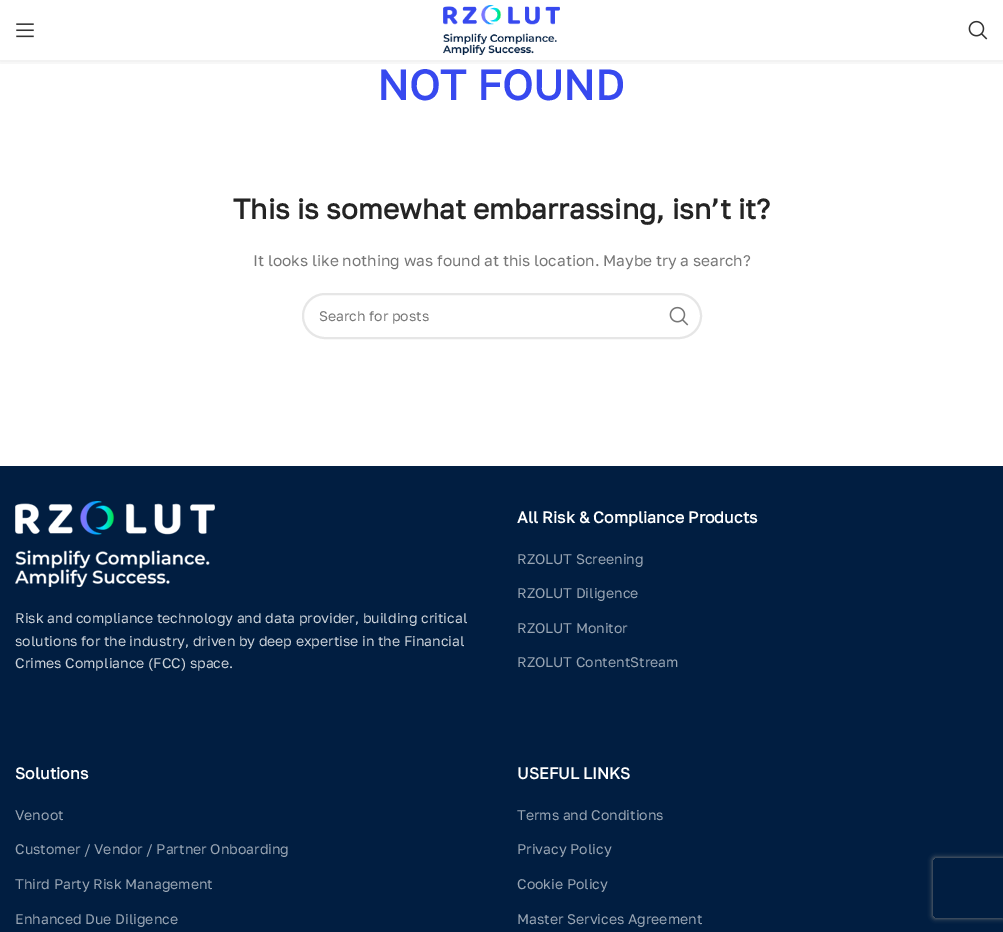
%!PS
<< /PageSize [1003 932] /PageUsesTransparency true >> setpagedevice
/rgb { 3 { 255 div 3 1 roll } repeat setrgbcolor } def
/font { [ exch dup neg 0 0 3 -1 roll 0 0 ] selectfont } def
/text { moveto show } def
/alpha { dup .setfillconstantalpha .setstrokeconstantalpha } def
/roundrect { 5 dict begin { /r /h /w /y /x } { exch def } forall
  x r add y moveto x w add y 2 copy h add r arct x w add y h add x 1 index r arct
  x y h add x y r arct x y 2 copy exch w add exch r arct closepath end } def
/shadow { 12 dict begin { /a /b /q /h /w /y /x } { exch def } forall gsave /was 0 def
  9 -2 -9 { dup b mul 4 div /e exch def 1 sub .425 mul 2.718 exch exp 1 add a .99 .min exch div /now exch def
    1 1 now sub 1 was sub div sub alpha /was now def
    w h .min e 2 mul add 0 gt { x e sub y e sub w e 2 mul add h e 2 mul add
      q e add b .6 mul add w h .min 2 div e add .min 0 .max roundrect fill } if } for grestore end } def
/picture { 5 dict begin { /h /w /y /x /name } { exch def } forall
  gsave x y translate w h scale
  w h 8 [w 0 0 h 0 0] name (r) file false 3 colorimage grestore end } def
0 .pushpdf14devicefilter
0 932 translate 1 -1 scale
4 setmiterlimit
255 255 255 rgb
0 0 1003 932 rectfill
gsave
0 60 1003 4 rectclip
0 0 0 rgb
0 1 1003 60 0 4 0.1 shadow
grestore
(img_01.rgb) 16 23 18 15 picture
(img_02.rgb) 443 5 117 50 picture
(img_03.rgb) 968 20 20 20 picture
230 230 230 rgb
2 setlinewidth
303 294 398 44 22 roundrect stroke
(img_04.rgb) 669 306 20 20 picture
1 30 65 rgb
0 466 1003 466 rectfill
(img_05.rgb) 15 501 200 86 picture
gsave
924 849 moveto 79 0 rlineto 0 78 rlineto -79 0 rlineto closepath 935 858 moveto 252 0 rlineto 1 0 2 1 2 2 rcurveto 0 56 rlineto 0 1 -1 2 -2 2 rcurveto -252 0 rlineto -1 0 -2 -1 -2 -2 rcurveto 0 -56 rlineto 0 -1 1 -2 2 -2 rcurveto closepath eoclip newpath
128 128 128 rgb
933 858 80 60 2 2.5 1 shadow
grestore
991 880 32 40 20 roundrect fill
/GolosText-Bold 42 font
55 73 239 rgb
(NOT FOUND) 377 100 text
/GolosText-Bold 28 font
36 36 36 rgb
(This is somewhat embarrassing, isn’t it?) 233 219 text
/GolosText-Regular 15.4 font
119 119 119 rgb
(It looks like nothing was found at this location. Maybe try a search?) 253 266 text
/GolosText-Regular 14 font
(Search for posts) 319 321 text
204 210 217 rgb
(Risk and compliance technology and data provider, building critical) 15 623 text
(solutions for the industry, driven by deep expertise in the Financial) 15 646 text
(Crimes Compliance \(FCC\) space.) 15 668 text
/GolosText-Bold 16 font
255 255 255 rgb
(All Risk & Compliance Products) 517 523 text
/GolosText-Regular 14 font
153 165 179 rgb
(RZOLUT Screening) 517 564 text
(RZOLUT Diligence) 517 598 text
(RZOLUT Monitor) 517 633 text
(RZOLUT ContentStream) 517 667 text
/GolosText-Bold 16 font
255 255 255 rgb
(Solutions) 15 779 text
/GolosText-Regular 14 font
153 165 179 rgb
(Venoot) 15 820 text
(Customer / Vendor / Partner Onboarding) 15 854 text
(Third Party Risk Management) 15 889 text
(Enhanced Due Diligence) 15 924 text
/GolosText-Bold 16 font
255 255 255 rgb
(USEFUL LINKS) 517 779 text
/GolosText-Regular 14 font
153 165 179 rgb
(Terms and Conditions) 517 820 text
(Privacy Policy) 517 854 text
(Cookie Policy) 517 889 text
(Master Services Agreement) 517 924 text
.poppdf14devicefilter showpage
